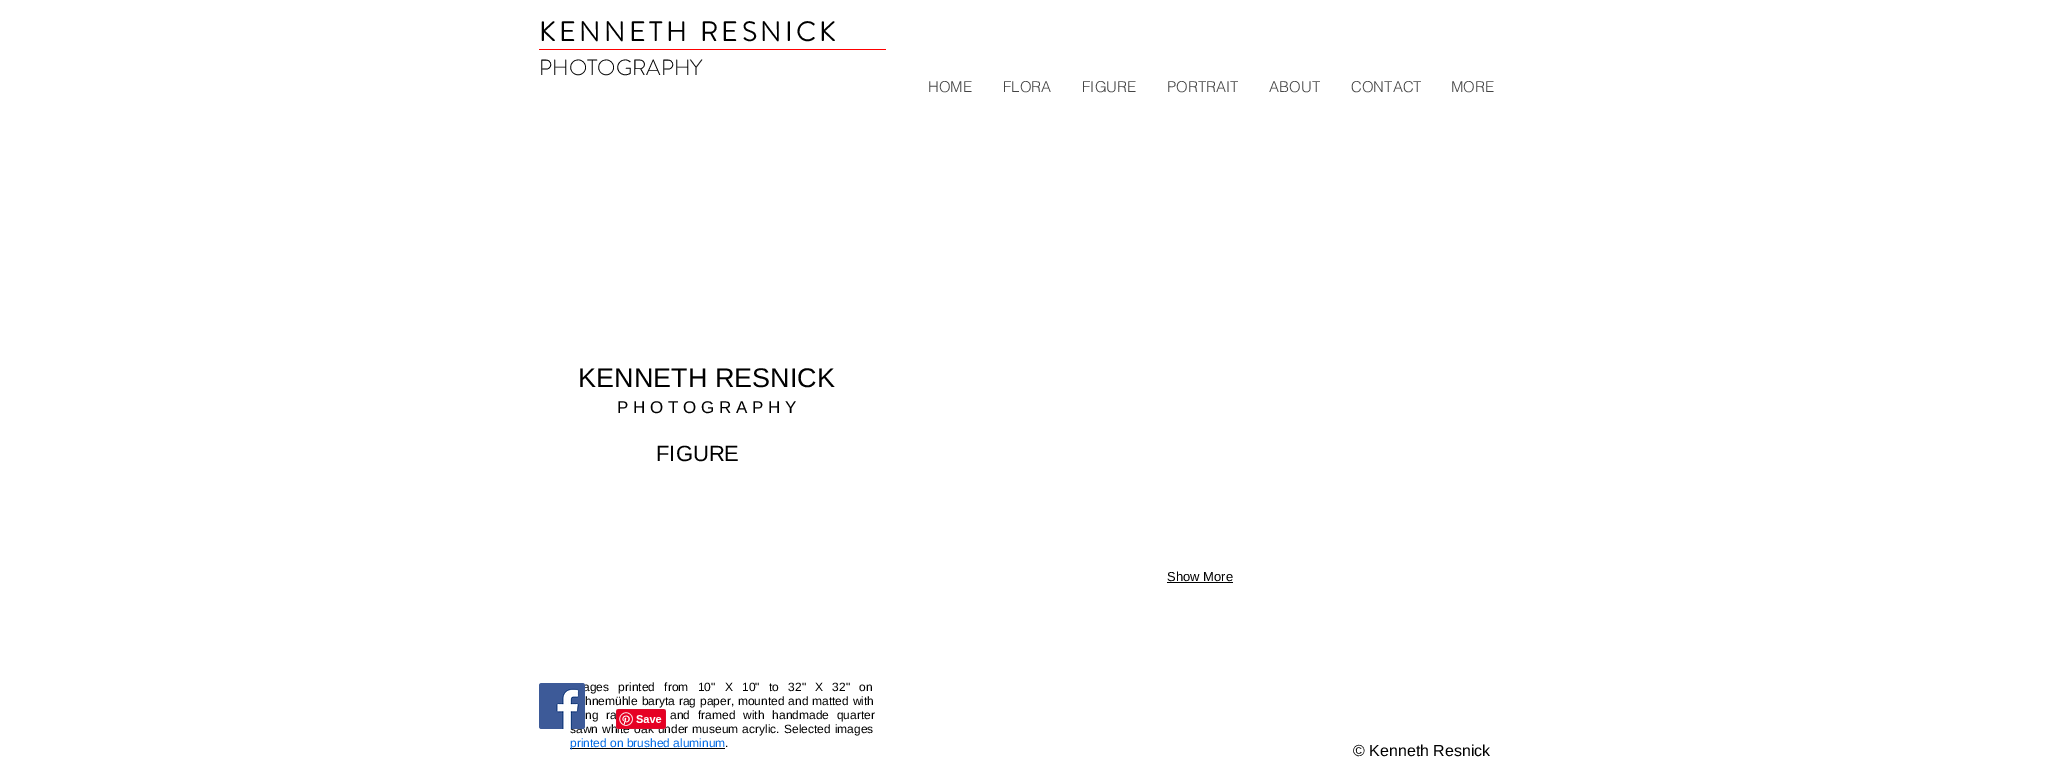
%!PS
<< /PageSize [2058 759] >> setpagedevice
/rgb { 3 { 255 div 3 1 roll } repeat setrgbcolor } def
/font { [ exch dup neg 0 0 3 -1 roll 0 0 ] selectfont } def
/text { moveto show } def
/picture { 5 dict begin { /h /w /y /x /name } { exch def } forall
  gsave x y translate w h scale
  w h 8 [w 0 0 h 0 0] name (r) file false 3 colorimage grestore end } def
0 759 translate 1 -1 scale
4 setmiterlimit
255 255 255 rgb
0 0 2058 759 rectfill
255 0 0 rgb
539 49 347 1 rectfill
0 0 0 rgb
1167 582 66 1 rectfill
570 748 155 1 rectfill
/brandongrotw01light-Bold 27 font
539 41 moveto 4 0 (KENNETH RESNICK) ashow
/brandongrotw01light-Light 22 font
(PHOTOGRAPHY) 539 75 text
/helvetica-Light 15 font
68 68 68 rgb
(HOME) 928 92 text
(FLORA) 1003 92 text
(FIGURE) 1082 92 text
(PORTRAIT) 1167 92 text
(ABOUT) 1269 92 text
(CONTACT) 1351 92 text
(MORE) 1451 92 text
/LiberationSans-Regular 27 font
0 0 0 rgb
(KENNETH RESNICK) 578 387 text
/LiberationSans-Regular 17 font
(P H O T O G R A P H Y) 617 413 text
/LiberationSans-Regular 22 font
(FIGURE) 656 461 text
/LiberationSans-Regular 13 font
(Show More) 1167 581 text
/LiberationSans-Regular 12 font
583 691 moveto 6 0 32 (ages printed from 10" X 10" to 32" X 32" on) widthshow
585 705 moveto 0.5 0 32 (hnemühle baryta rag paper, mounted and matted with) widthshow
585 719 moveto 4.5 0 32 (ng ra) widthshow
670 719 moveto 4.5 0 32 (and framed with handmade quarter) widthshow
570 733 moveto 0.75 0 32 (sawn white oak under museum acrylic. Selected images) widthshow
0 106 230 rgb
(printed on brushed aluminum) 570 747 text
0 0 0 rgb
(.) 725 747 text
/LiberationSans-Regular 16 font
(© Kenneth Resnick) 1353 756 text
(img_01.rgb) 539 683 46 46 picture
(img_02.rgb) 616 709 50 20 picture
showpage
